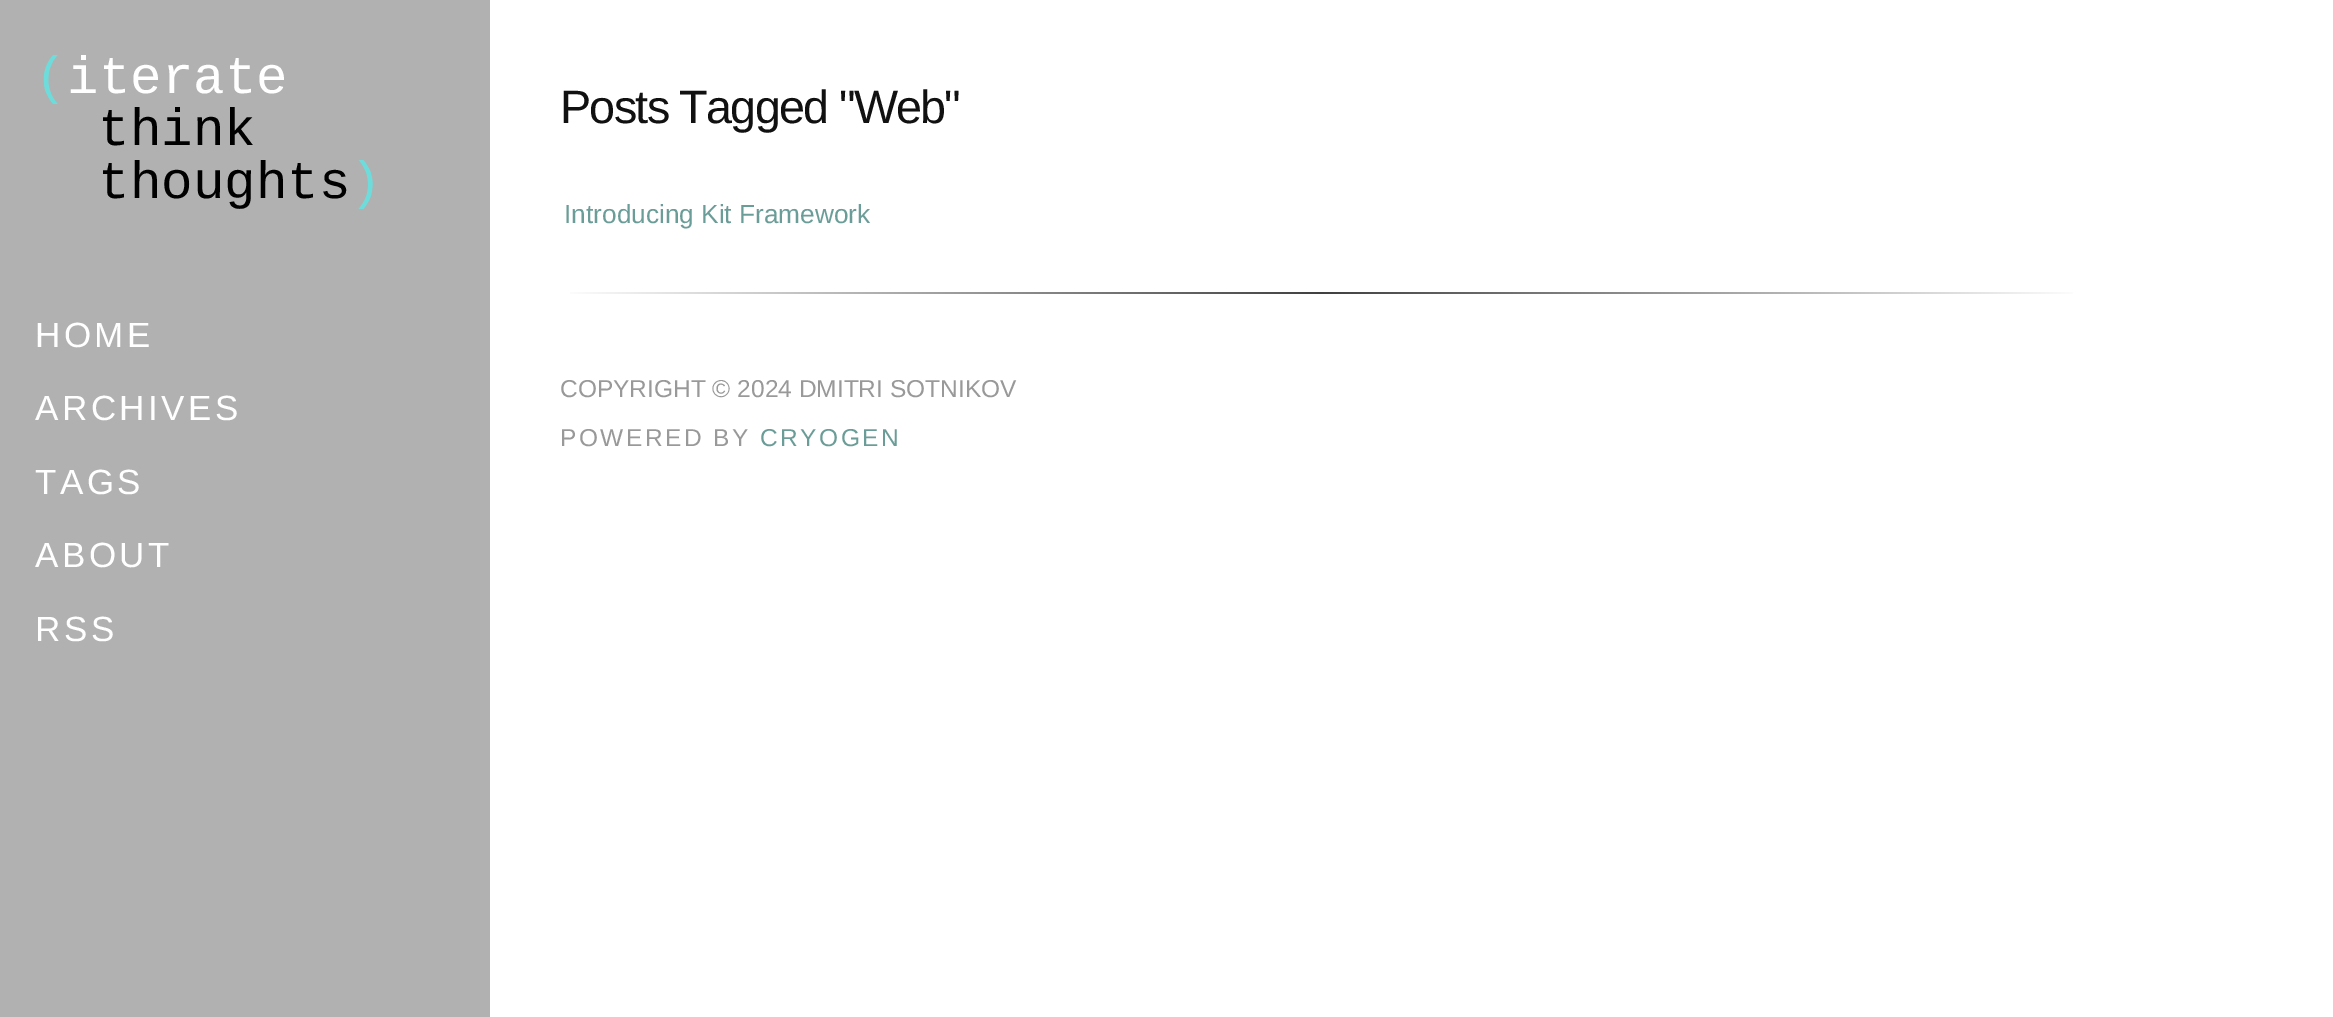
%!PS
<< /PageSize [2333 1017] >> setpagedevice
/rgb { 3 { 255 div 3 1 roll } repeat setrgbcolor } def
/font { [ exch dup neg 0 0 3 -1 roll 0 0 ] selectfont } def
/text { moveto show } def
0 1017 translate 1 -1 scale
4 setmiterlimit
255 255 255 rgb
0 0 2333 1017 rectfill
177 177 177 rgb
0 0 490 1017 rectfill
gsave 570 292 moveto 1503 0 rlineto 0 2 rlineto -1503 0 rlineto closepath clip newpath
<< /ShadingType 2 /ColorSpace /DeviceRGB /Coords [560 293 2083 293] /Extend [true true] /Function << /FunctionType 3 /Domain [0 1] /Functions [<< /FunctionType 2 /Domain [0 1] /C0 [1 1 1] /C1 [0.251 0.251 0.251] /N 1 >> << /FunctionType 2 /Domain [0 1] /C0 [0.251 0.251 0.251] /C1 [1 1 1] /N 1 >>] /Bounds [0.5] /Encode [0 1 0 1] >> >> shfill grestore
/LiberationMono-Regular 52.5 font
111 220 220 rgb
(\() 35 93 text
255 255 255 rgb
(iterate) 67 93 text
0 0 0 rgb
(think) 98 145 text
(thoughts) 98 198 text
111 220 220 rgb
(\)) 350 198 text
/LiberationSans-Regular 35 font
255 255 255 rgb
35 347 moveto 3.5 0 (HOME) ashow
35 420 moveto 3.5 0 (ARCHIVES) ashow
35 494 moveto 3.5 0 (TAGS) ashow
35 567 moveto 3.5 0 (ABOUT) ashow
35 641 moveto 3.5 0 (RSS) ashow
/LiberationSans-Regular 46.75 font
17 17 17 rgb
560 123 moveto -1.75 0 (Posts Tagged "Web") ashow
/LiberationSans-Regular 26.25 font
107 157 152 rgb
(Introducing Kit Framework) 564 223 text
/LiberationSans-Regular 24.5 font
153 153 153 rgb
(COPYRIGHT © 2024 DMITRI SOTNIKOV) 560 397 text
560 446 moveto 2.5 0 (POWERED BY) ashow
107 157 152 rgb
760 446 moveto 2.5 0 (CRYOGEN) ashow
showpage
